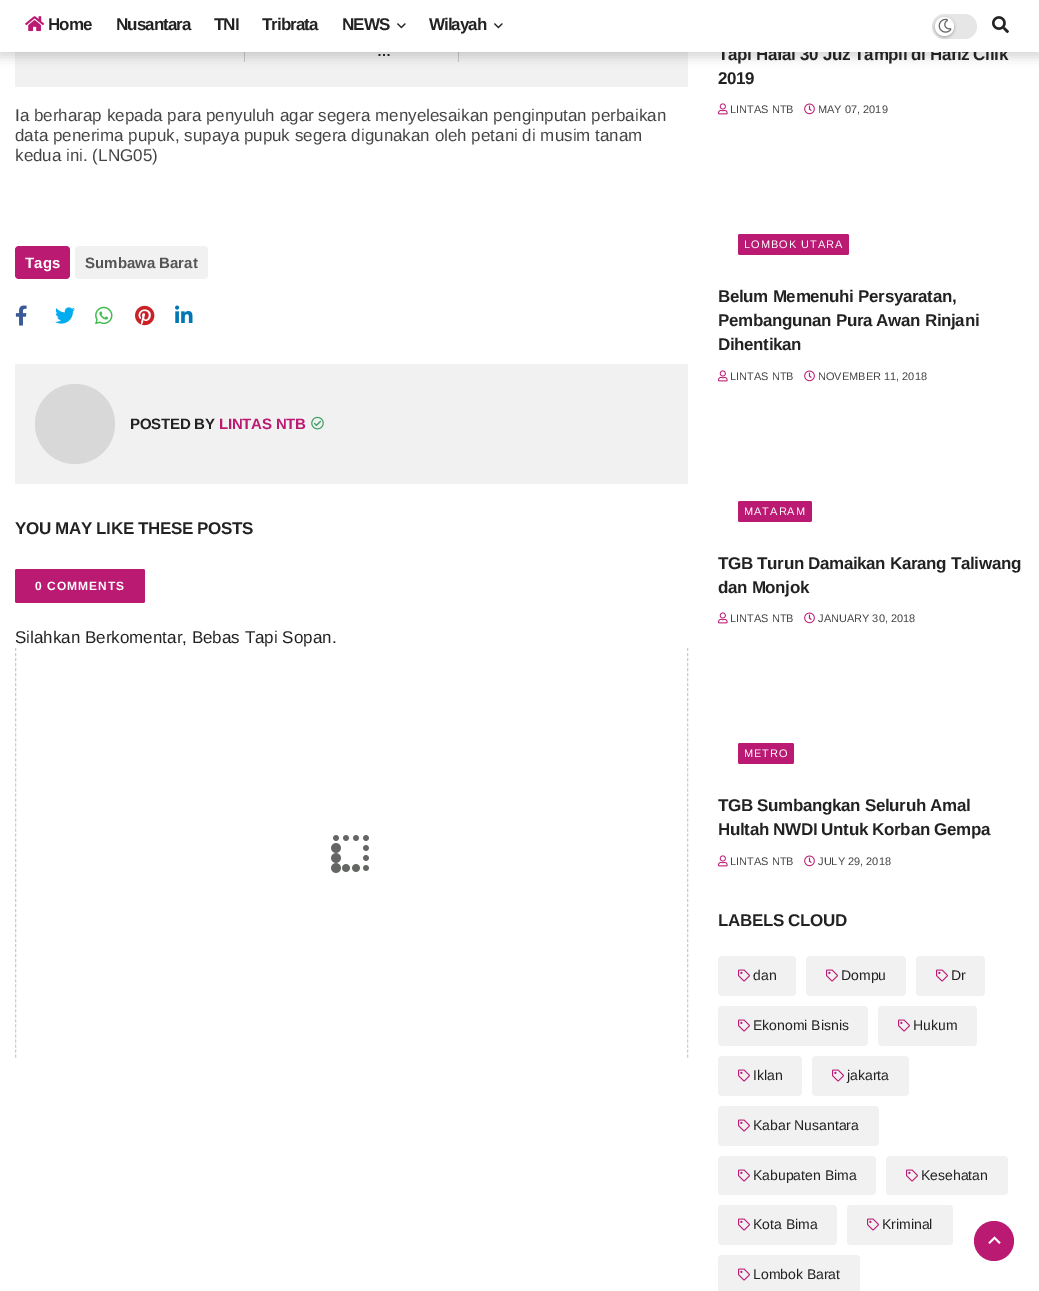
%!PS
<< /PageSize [1039 1291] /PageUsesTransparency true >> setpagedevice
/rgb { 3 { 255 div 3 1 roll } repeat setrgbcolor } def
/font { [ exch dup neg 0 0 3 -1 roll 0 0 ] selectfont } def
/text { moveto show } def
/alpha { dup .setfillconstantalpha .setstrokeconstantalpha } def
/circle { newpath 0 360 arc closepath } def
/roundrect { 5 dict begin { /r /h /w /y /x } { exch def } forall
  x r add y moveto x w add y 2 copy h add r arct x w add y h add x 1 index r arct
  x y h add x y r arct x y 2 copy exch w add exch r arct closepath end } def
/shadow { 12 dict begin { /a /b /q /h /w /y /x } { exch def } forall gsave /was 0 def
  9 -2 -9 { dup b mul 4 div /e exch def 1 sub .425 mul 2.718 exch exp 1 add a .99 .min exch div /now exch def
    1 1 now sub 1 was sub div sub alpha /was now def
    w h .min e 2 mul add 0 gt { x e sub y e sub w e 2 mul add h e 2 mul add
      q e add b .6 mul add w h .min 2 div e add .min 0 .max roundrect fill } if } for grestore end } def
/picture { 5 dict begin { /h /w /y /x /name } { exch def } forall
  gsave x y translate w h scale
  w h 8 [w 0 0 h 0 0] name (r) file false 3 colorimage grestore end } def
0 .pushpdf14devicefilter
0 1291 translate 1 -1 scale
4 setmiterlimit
255 255 255 rgb
0 0 1039 1291 rectfill
241 241 241 rgb
15 52 673 35 rectfill
199 199 199 rgb
244 52 1 10 rectfill
458 52 1 10 rectfill
0 0 0 rgb
-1 3 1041 54 0 5.5 0.16 shadow
187 26 115 rgb
15 246 55 33 4 roundrect fill
241 241 241 rgb
75 246 133 33 4 roundrect fill
(img_05.rgb) 15 305 12 21 picture
(img_06.rgb) 55 307 20 17 picture
(img_07.rgb) 95 306 18 19 picture
(img_08.rgb) 135 305 20 21 picture
(img_09.rgb) 175 305 18 18 picture
15 364 673 120 rectfill
216 216 216 rgb
75 424 40 circle fill
(img_10.rgb) 311 416 13 14 picture
187 26 115 rgb
15 569 130 34 2 roundrect fill
204 204 204 rgb
[3 2.02] 0 setdash
15.5 648 moveto 0 410 rlineto stroke
(img_11.rgb) 331 835 38 38 picture
687.5 648 moveto 0 410 rlineto stroke
(img_12.rgb) 718 103 10 12 picture
(img_13.rgb) 804 103 11 12 picture
187 26 115 rgb
738 234 111 21 2 roundrect fill
(img_12.rgb) 718 370 10 12 picture
(img_13.rgb) 804 370 11 12 picture
738 501 74 21 2 roundrect fill
(img_12.rgb) 718 612 10 12 picture
(img_13.rgb) 804 612 11 12 picture
738 743 56 21 2 roundrect fill
(img_12.rgb) 718 855 10 12 picture
(img_13.rgb) 804 855 11 12 picture
241 241 241 rgb
718 956 78 40 4 roundrect fill
(img_14.rgb) 738 969 12 13 picture
806 956 100 40 4 roundrect fill
(img_14.rgb) 826 969 12 13 picture
916 956 69 40 4 roundrect fill
(img_14.rgb) 936 969 12 13 picture
718 1006 150 40 4 roundrect fill
(img_14.rgb) 738 1019 12 13 picture
878 1006 99 40 4 roundrect fill
(img_14.rgb) 898 1019 12 13 picture
718 1056 84 40 4 roundrect fill
(img_14.rgb) 738 1069 12 13 picture
812 1056 97 40 4 roundrect fill
(img_14.rgb) 832 1069 12 13 picture
718 1106 161 40 4 roundrect fill
(img_14.rgb) 738 1119 12 13 picture
718 1156 158 39 4 roundrect fill
(img_14.rgb) 738 1169 12 13 picture
886 1156 122 39 4 roundrect fill
(img_14.rgb) 906 1169 12 13 picture
718 1205 119 40 4 roundrect fill
(img_14.rgb) 738 1218 12 13 picture
847 1205 106 40 4 roundrect fill
(img_14.rgb) 867 1218 12 13 picture
718 1255 142 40 4 roundrect fill
(img_14.rgb) 738 1268 12 13 picture
187 26 115 rgb
994 1241 20 circle fill
(img_15.rgb) 988 1236 13 8 picture
/LiberationSans-Bold 14 font
34 34 34 rgb
(…) 377 56 text
/LiberationSans-Regular 17 font
68 68 68 rgb
(Ia berharap kepada para penyuluh agar segera menyelesaikan penginputan perbaikan) 15 121 text
(data penerima pupuk, supaya pupuk segera digunakan oleh petani di musim tanam) 15 141 text
(kedua ini. \(LNG05\)) 15 161 text
/LiberationSans-Bold 15 font
255 255 255 rgb
(Tags) 25 268 text
85 85 85 rgb
(Sumbawa Barat) 85 268 text
34 34 34 rgb
130 429 moveto -0.25 0 (POSTED BY) ashow
187 26 115 rgb
219 429 moveto -0.25 0 (LINTAS NTB) ashow
/LiberationSans-Bold 17 font
34 34 34 rgb
15 534 moveto -0.35 0 (YOU MAY LIKE THESE POSTS) ashow
/LiberationSans-Bold 12 font
255 255 255 rgb
35 590 moveto 1 0 (0 COMMENTS) ashow
/LiberationSans-Regular 17 font
34 34 34 rgb
(Silahkan Berkomentar, Bebas Tapi Sopan.) 15 643 text
/LiberationSans-Bold 17 font
718 60 moveto -0.35 0 (Tapi Hafal 30 Juz Tampil di Hafiz Cilik) ashow
255 255 255 rgb
0 0 1039 52 rectfill
34 34 34 rgb
429 30 moveto -1 0 (Wilayah) ashow
(img_02.rgb) 494 23 9 6 picture
342 30 moveto -1 0 (NEWS) ashow
(img_02.rgb) 397 23 9 6 picture
262 30 moveto -1 0 (Tribrata) ashow
214 30 moveto -1 0 (TNI) ashow
116 30 moveto -1 0 (Nusantara) ashow
48 30 moveto -1 0 (Home) ashow
(img_01.rgb) 25 16 20 16 picture
230 230 230 rgb
932 14 45 25 12.5 roundrect fill
0 0 0 rgb
935 18 19 19 9.5 1.5 0.3 shadow
255 255 255 rgb
944.5 26.5 9.5 circle fill
(img_03.rgb) 938 18 14 15 picture
(img_04.rgb) 992 16 17 18 picture
34 34 34 rgb
718 84 moveto -0.35 0 (2019) ashow
/LiberationSans-Regular 11 font
68 68 68 rgb
(LINTAS NTB) 730 113 text
(MAY 07, 2019) 818 113 text
255 255 255 rgb
744 248 moveto 1 0 (LOMBOK UTARA) ashow
/LiberationSans-Bold 17 font
34 34 34 rgb
718 302 moveto -0.35 0 (Belum Memenuhi Persyaratan,) ashow
718 326 moveto -0.35 0 (Pembangunan Pura Awan Rinjani) ashow
718 350 moveto -0.35 0 (Dihentikan) ashow
/LiberationSans-Regular 11 font
68 68 68 rgb
(LINTAS NTB) 730 380 text
(NOVEMBER 11, 2018) 818 380 text
255 255 255 rgb
744 515 moveto 1 0 (MATARAM) ashow
/LiberationSans-Bold 17 font
34 34 34 rgb
718 569 moveto -0.35 0 (TGB Turun Damaikan Karang Taliwang) ashow
718 593 moveto -0.35 0 (dan Monjok) ashow
/LiberationSans-Regular 11 font
68 68 68 rgb
(LINTAS NTB) 730 622 text
(JANUARY 30, 2018) 818 622 text
255 255 255 rgb
744 757 moveto 1 0 (METRO) ashow
/LiberationSans-Bold 17 font
34 34 34 rgb
718 811 moveto -0.35 0 (TGB Sumbangkan Seluruh Amal) ashow
718 835 moveto -0.35 0 (Hultah NWDI Untuk Korban Gempa) ashow
/LiberationSans-Regular 11 font
68 68 68 rgb
(LINTAS NTB) 730 865 text
(JULY 29, 2018) 818 865 text
/LiberationSans-Bold 17 font
34 34 34 rgb
718 926 moveto -0.35 0 (LABELS CLOUD) ashow
/LiberationSans-Regular 14 font
(dan) 753 980 text
(Dompu) 841 980 text
(Dr) 951 980 text
(Ekonomi Bisnis) 753 1030 text
(Hukum) 913 1030 text
(Iklan) 753 1080 text
(jakarta) 847 1080 text
(Kabar Nusantara) 753 1130 text
(Kabupaten Bima) 753 1180 text
(Kesehatan) 921 1180 text
(Kota Bima) 753 1229 text
(Kriminal) 882 1229 text
(Lombok Barat) 753 1279 text
.poppdf14devicefilter showpage
